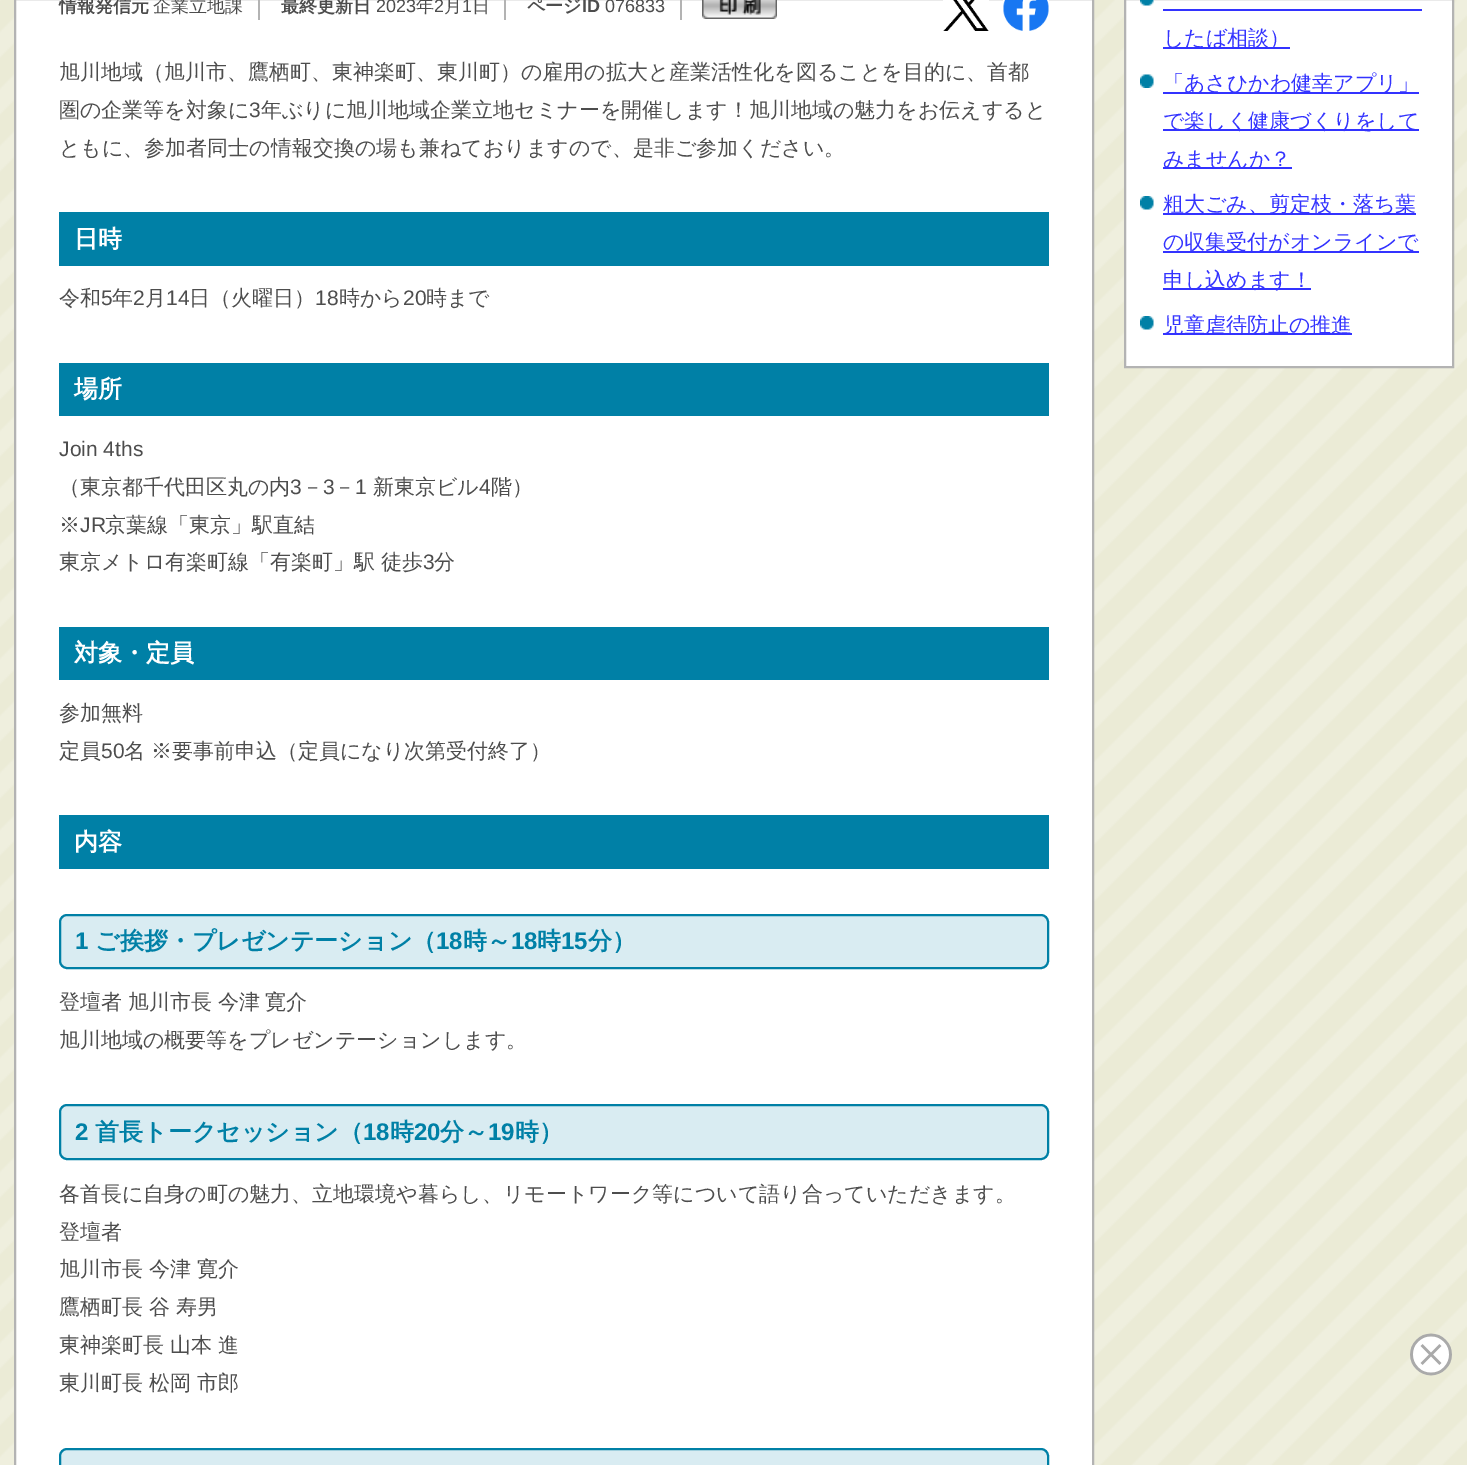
%!PS
<< /PageSize [1467 1465] >> setpagedevice
/rgb { 3 { 255 div 3 1 roll } repeat setrgbcolor } def
/font { [ exch dup neg 0 0 3 -1 roll 0 0 ] selectfont } def
/text { moveto show } def
/roundrect { 5 dict begin { /r /h /w /y /x } { exch def } forall
  x r add y moveto x w add y 2 copy h add r arct x w add y h add x 1 index r arct
  x y h add x y r arct x y 2 copy exch w add exch r arct closepath end } def
/picture { 5 dict begin { /h /w /y /x /name } { exch def } forall
  gsave x y translate w h scale
  w h 8 [w 0 0 h 0 0] name (r) file false 3 colorimage grestore end } def
0 1465 translate 1 -1 scale
4 setmiterlimit
255 255 255 rgb
0 0 1467 1465 rectfill
(img_01.rgb) 0 0 1467 1465 picture
15 -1 moveto 1078 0 rlineto 0 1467 rlineto -1078 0 rlineto closepath gsave fill grestore
179 179 179 rgb
2 setlinewidth
stroke
258 0 2 20 rectfill
504 0 2 20 rectfill
680 0 2 20 rectfill
(img_02.rgb) 702 0 75 19 picture
(img_03.rgb) 943 0 46 31 picture
(img_04.rgb) 1003 0 46 31 picture
0 128 166 rgb
59 212 990 54 rectfill
59 363 990 53 rectfill
59 627 990 53 rectfill
59 815 990 54 rectfill
217 236 242 rgb
60 915 988 53 7 roundrect gsave fill grestore
0 128 166 rgb
stroke
217 236 242 rgb
60 1105 988 54 7 roundrect gsave fill grestore
0 128 166 rgb
stroke
217 236 242 rgb
60 1449 988 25 7 roundrect gsave fill grestore
0 128 166 rgb
stroke
255 255 255 rgb
1125 -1 moveto 328 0 rlineto 0 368 rlineto -328 0 rlineto closepath gsave fill grestore
179 179 179 rgb
stroke
(img_05.rgb) 1140 0 14 6 picture
51 51 255 rgb
1163 9 259 2 rectfill
1163 47 127 2 rectfill
(img_06.rgb) 1140 74 14 14 picture
1163 92 256 2 rectfill
1163 129 256 2 rectfill
1163 167 129 2 rectfill
(img_07.rgb) 1140 196 14 14 picture
1163 213 253 2 rectfill
1163 251 256 2 rectfill
1163 288 148 2 rectfill
(img_07.rgb) 1140 316 14 14 picture
1163 333 189 2 rectfill
(img_08.rgb) 1410 1333 42 43 picture
/WenQuanYiZenHei-Bold 18 font
77 77 77 rgb
(情報発信元) 59 12 text
/WenQuanYiZenHei-Medium 18 font
(企業立地課) 153 12 text
/WenQuanYiZenHei-Bold 18 font
(最終更新日) 281 12 text
/LiberationSans-Regular 18 font
(2023) 376 12 text
/WenQuanYiZenHei-Medium 18 font
(年) 416 12 text
/LiberationSans-Regular 18 font
(2) 434 12 text
/WenQuanYiZenHei-Medium 18 font
(月) 444 12 text
/LiberationSans-Regular 18 font
(1) 462 12 text
/WenQuanYiZenHei-Medium 18 font
(日) 472 12 text
/WenQuanYiZenHei-Bold 18 font
(ページ) 527 12 text
/LiberationSans-Bold 18 font
(ID) 582 12 text
/LiberationSans-Regular 18 font
(076833) 605 12 text
/WenQuanYiZenHei-Medium 21 font
(旭川地域（旭川市、鷹栖町、東神楽町、東川町）の雇用の拡大と産業活性化を図ることを目的に、首都) 59 79 text
(圏の企業等を対象に) 59 117 text
/LiberationSans-Regular 21 font
(3) 249 117 text
/WenQuanYiZenHei-Medium 21 font
(年ぶりに旭川地域企業立地セミナーを開催します！旭川地域の魅力をお伝えすると) 261 117 text
(ともに、参加者同士の情報交換の場も兼ねておりますので、是非ご参加ください。) 59 155 text
/WenQuanYiZenHei-Bold 24 font
255 255 255 rgb
(日時) 74 247 text
/WenQuanYiZenHei-Medium 21 font
77 77 77 rgb
(令和) 59 305 text
/LiberationSans-Regular 21 font
(5) 101 305 text
/WenQuanYiZenHei-Medium 21 font
(年) 112 305 text
/LiberationSans-Regular 21 font
(2) 133 305 text
/WenQuanYiZenHei-Medium 21 font
(月) 145 305 text
/LiberationSans-Regular 21 font
(14) 166 305 text
/WenQuanYiZenHei-Medium 21 font
(日（火曜日）) 189 305 text
/LiberationSans-Regular 21 font
(18) 315 305 text
/WenQuanYiZenHei-Medium 21 font
(時から) 339 305 text
/LiberationSans-Regular 21 font
(20) 403 305 text
/WenQuanYiZenHei-Medium 21 font
(時まで) 426 305 text
/WenQuanYiZenHei-Bold 24 font
255 255 255 rgb
(場所) 74 397 text
/LiberationSans-Regular 21 font
77 77 77 rgb
(Join 4ths) 59 456 text
/WenQuanYiZenHei-Medium 21 font
(（東京都千代田区丸の内) 59 494 text
/LiberationSans-Regular 21 font
(3) 290 494 text
/WenQuanYiZenHei-Medium 21 font
(－) 302 494 text
/LiberationSans-Regular 21 font
(3) 323 494 text
/WenQuanYiZenHei-Medium 21 font
(－) 334 494 text
/LiberationSans-Regular 21 font
(1) 355 494 text
/WenQuanYiZenHei-Medium 21 font
(新東京ビル) 373 494 text
/LiberationSans-Regular 21 font
(4) 479 494 text
/WenQuanYiZenHei-Medium 21 font
(階）) 491 494 text
(※) 59 532 text
/LiberationSans-Regular 21 font
(JR) 80 532 text
/WenQuanYiZenHei-Medium 21 font
(京葉線「東京」駅直結) 105 532 text
59 569 moveto -0.5 0 32 (東京メトロ有楽町線「有楽町」駅 徒歩) widthshow
/LiberationSans-Regular 21 font
(3) 423 569 text
/WenQuanYiZenHei-Medium 21 font
(分) 434 569 text
/WenQuanYiZenHei-Bold 24 font
255 255 255 rgb
(対象・定員) 74 661 text
/WenQuanYiZenHei-Medium 21 font
77 77 77 rgb
(参加無料) 59 720 text
(定員) 59 758 text
/LiberationSans-Regular 21 font
(50) 101 758 text
/WenQuanYiZenHei-Medium 21 font
124 758 moveto -0.5 0 32 (名 ※要事前申込（定員になり次第受付終了）) widthshow
/WenQuanYiZenHei-Bold 24 font
255 255 255 rgb
(内容) 74 850 text
/LiberationSans-Bold 24 font
0 128 166 rgb
(1) 75 949 text
/WenQuanYiZenHei-Bold 24 font
(ご挨拶・プレゼンテーション（) 95 949 text
/LiberationSans-Bold 24 font
(18) 436 949 text
/WenQuanYiZenHei-Bold 24 font
(時～) 463 949 text
/LiberationSans-Bold 24 font
(18) 511 949 text
/WenQuanYiZenHei-Bold 24 font
(時) 537 949 text
/LiberationSans-Bold 24 font
(15) 561 949 text
/WenQuanYiZenHei-Bold 24 font
(分）) 588 949 text
/WenQuanYiZenHei-Medium 21 font
77 77 77 rgb
59 1009 moveto -0.5 0 32 (登壇者 旭川市長 今津 寛介) widthshow
(旭川地域の概要等をプレゼンテーションします。) 59 1047 text
/LiberationSans-Bold 24 font
0 128 166 rgb
(2) 75 1140 text
/WenQuanYiZenHei-Bold 24 font
(首長トークセッション（) 95 1140 text
/LiberationSans-Bold 24 font
(18) 363 1140 text
/WenQuanYiZenHei-Bold 24 font
(時) 390 1140 text
/LiberationSans-Bold 24 font
(20) 414 1140 text
/WenQuanYiZenHei-Bold 24 font
(分～) 440 1140 text
/LiberationSans-Bold 24 font
(19) 488 1140 text
/WenQuanYiZenHei-Bold 24 font
(時）) 515 1140 text
/WenQuanYiZenHei-Medium 21 font
77 77 77 rgb
(各首長に自身の町の魅力、立地環境や暮らし、リモートワーク等について語り合っていただきます。) 59 1201 text
(登壇者) 59 1239 text
59 1276 moveto -0.5 0 32 (旭川市長 今津 寛介) widthshow
59 1314 moveto -0.5 0 32 (鷹栖町長 谷 寿男) widthshow
59 1352 moveto -0.5 0 32 (東神楽町長 山本 進) widthshow
59 1390 moveto -0.5 0 32 (東川町長 松岡 市郎) widthshow
51 51 255 rgb
(したば相談）) 1163 45 text
(「あさひかわ健幸アプリ」) 1163 90 text
(で楽しく健康づくりをして) 1163 128 text
(みませんか？) 1163 166 text
(粗大ごみ、剪定枝・落ち葉) 1163 211 text
(の収集受付がオンラインで) 1163 249 text
(申し込めます！) 1163 287 text
(児童虐待防止の推進) 1163 332 text
showpage
